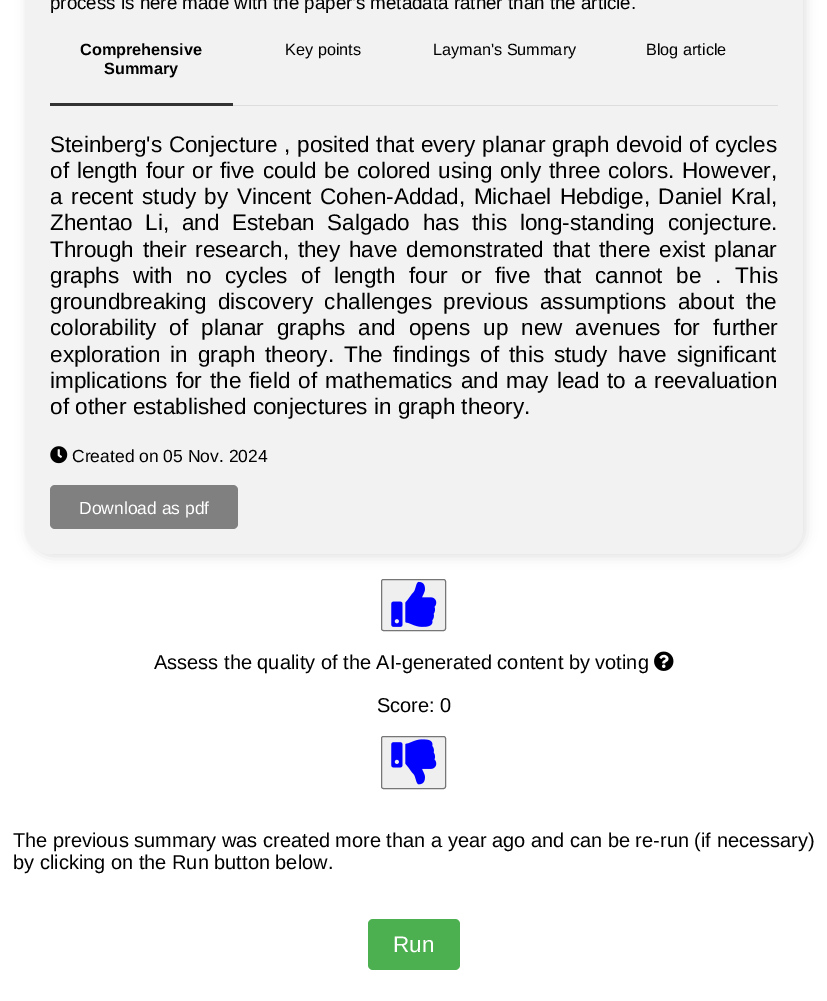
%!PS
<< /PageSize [827 1001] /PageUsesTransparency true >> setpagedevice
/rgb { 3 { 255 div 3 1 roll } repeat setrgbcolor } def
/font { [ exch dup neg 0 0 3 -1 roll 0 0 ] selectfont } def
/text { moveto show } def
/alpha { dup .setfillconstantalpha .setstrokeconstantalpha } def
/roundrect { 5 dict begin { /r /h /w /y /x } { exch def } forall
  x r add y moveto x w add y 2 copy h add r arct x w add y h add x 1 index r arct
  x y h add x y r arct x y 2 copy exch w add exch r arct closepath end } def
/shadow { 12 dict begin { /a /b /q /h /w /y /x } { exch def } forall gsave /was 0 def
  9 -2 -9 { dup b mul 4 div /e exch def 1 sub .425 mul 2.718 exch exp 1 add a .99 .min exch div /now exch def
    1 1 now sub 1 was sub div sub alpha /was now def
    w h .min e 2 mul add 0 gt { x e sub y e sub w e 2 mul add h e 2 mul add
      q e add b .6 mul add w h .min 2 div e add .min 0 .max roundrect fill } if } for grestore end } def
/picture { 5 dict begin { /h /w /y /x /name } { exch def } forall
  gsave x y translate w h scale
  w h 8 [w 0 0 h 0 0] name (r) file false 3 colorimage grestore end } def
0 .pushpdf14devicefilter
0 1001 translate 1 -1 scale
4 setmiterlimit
255 255 255 rgb
0 0 827 1001 rectfill
221 221 221 rgb
28 -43 777 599 25 6 1 shadow
242 242 242 rgb
25 -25 778 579 25 roundrect fill
221 221 221 rgb
233 105 545 1 rectfill
51 51 51 rgb
50 103 183 3 rectfill
(img_01.rgb) 50 446 18 18 picture
128 128 128 rgb
50 485 188 44 5 roundrect fill
239 239 239 rgb
381.5 579.5 64 51 2 roundrect gsave fill grestore
118 118 118 rgb
stroke
(img_02.rgb) 391 581 46 46 picture
(img_03.rgb) 654 651 20 20 picture
239 239 239 rgb
381.5 736.5 64 52 2 roundrect gsave fill grestore
118 118 118 rgb
stroke
(img_04.rgb) 391 739 46 46 picture
76 175 80 rgb
368 919 92 51 5 roundrect fill
/LiberationSans-Regular 18.75 font
0 0 0 rgb
(process is here made with the paper's metadata rather than the article.) 50 9 text
/LiberationSans-Bold 16.25 font
(Comprehensive) 80 55 text
(Summary) 104 74 text
/LiberationSans-Regular 16.25 font
(Key points) 285 55 text
(Layman's Summary) 433 55 text
(Blog article) 646 55 text
/LiberationSans-Regular 22.5 font
50 152 moveto 0.5 0 32 (Steinberg's Conjecture , posited that every planar graph devoid of cycles) widthshow
50 178 moveto 1.5 0 32 (of length four or five could be colored using only three colors. However,) widthshow
50 204 moveto 2.25 0 32 (a recent study by Vincent Cohen-Addad, Michael Hebdige, Daniel Kral,) widthshow
50 230 moveto 6.5 0 32 (Zhentao Li, and Esteban Salgado has) widthshow
472 230 moveto 6.5 0 32 (this long-standing conjecture.) widthshow
50 257 moveto 2.5 0 32 (Through their research, they have demonstrated that there exist planar) widthshow
50 283 moveto 7.5 0 32 (graphs with no cycles of length four or five that cannot be . This) widthshow
50 309 moveto 5.25 0 32 (groundbreaking discovery challenges previous assumptions about the) widthshow
50 335 moveto 6.75 0 32 (colorability of planar graphs and opens up new avenues for further) widthshow
50 362 moveto 3.75 0 32 (exploration in graph theory. The findings of this study have significant) widthshow
50 388 moveto 1.75 0 32 (implications for the field of mathematics and may lead to a reevaluation) widthshow
(of other established conjectures in graph theory.) 50 414 text
/LiberationSans-Regular 17.5 font
(Created on 05 Nov. 2024) 72 462 text
255 255 255 rgb
(Download as pdf) 79 514 text
/LiberationSans-Regular 20 font
0 0 0 rgb
(Assess the quality of the AI-generated content by voting) 154 669 text
(Score: 0) 377 712 text
(The previous summary was created more than a year ago and can be re-run \(if necessary\)) 13 847 text
(by clicking on the Run button below.) 13 869 text
/LiberationSans-Regular 22.5 font
255 255 255 rgb
(Run) 393 952 text
.poppdf14devicefilter showpage
